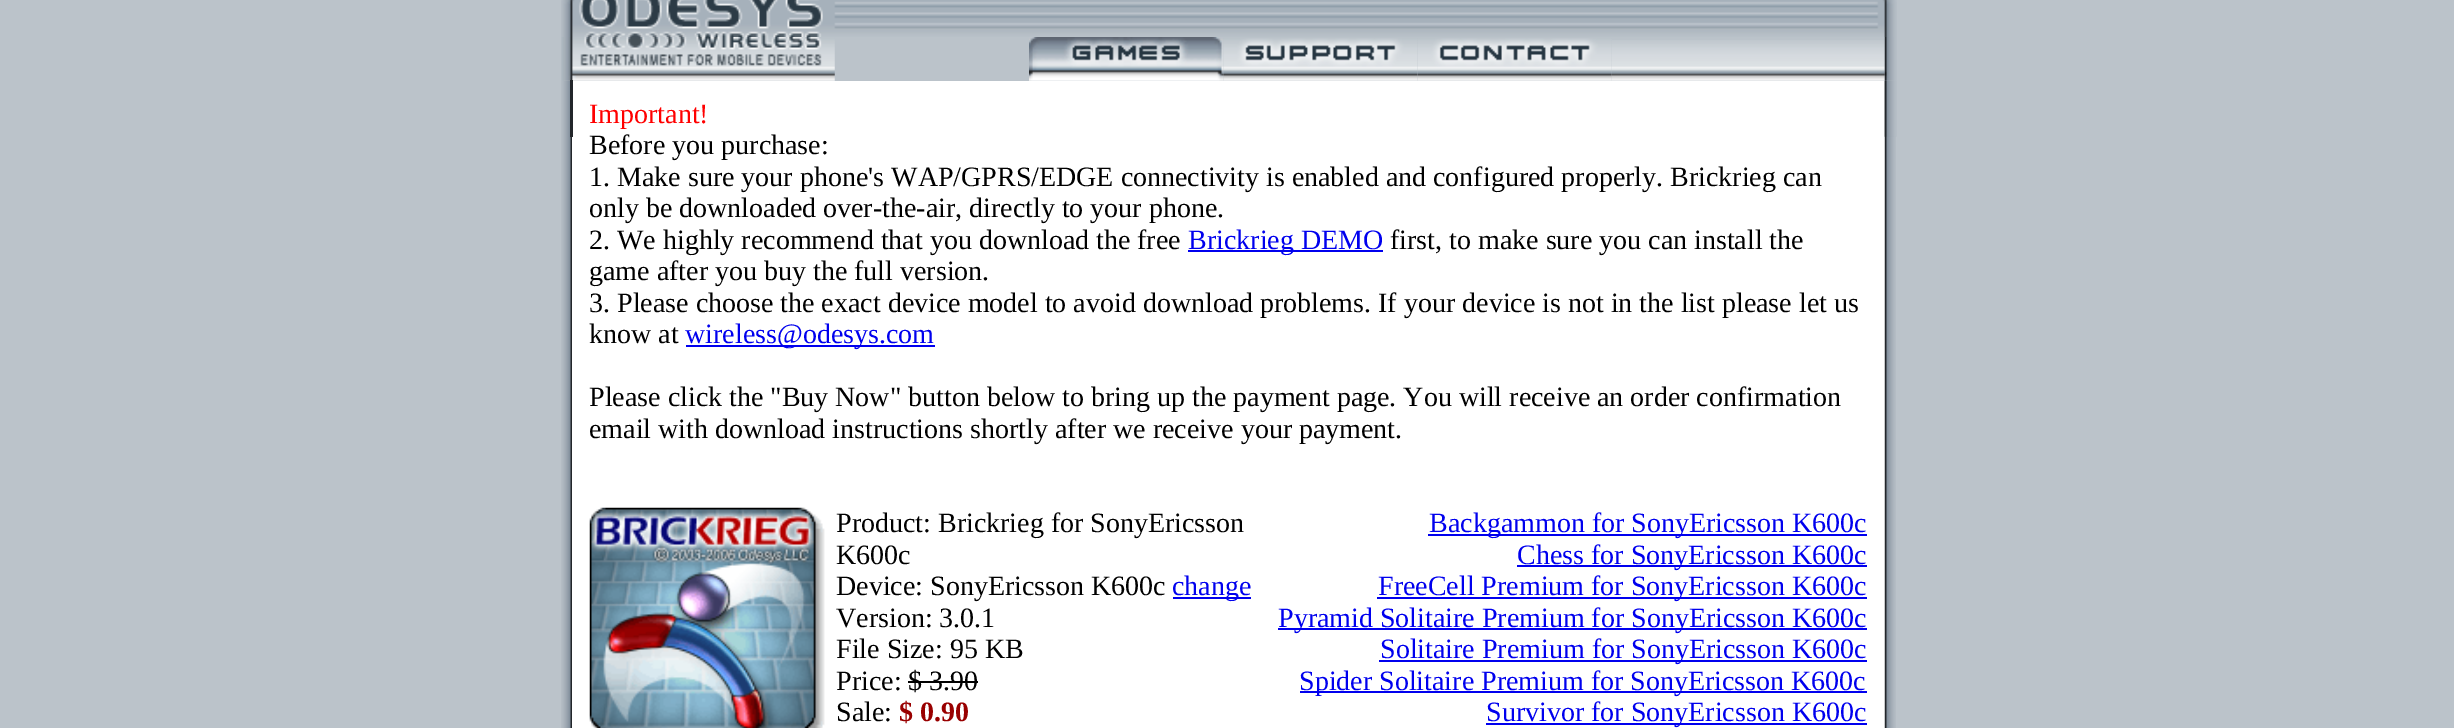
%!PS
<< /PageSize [2454 728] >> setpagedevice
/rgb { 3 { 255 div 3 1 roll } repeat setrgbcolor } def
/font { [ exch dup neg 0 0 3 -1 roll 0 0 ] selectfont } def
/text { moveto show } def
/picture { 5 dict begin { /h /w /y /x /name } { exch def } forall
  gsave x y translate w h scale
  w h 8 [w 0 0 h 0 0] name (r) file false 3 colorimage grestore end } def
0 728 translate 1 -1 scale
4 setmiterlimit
187 195 202 rgb
0 0 2454 728 rectfill
(img_01.rgb) 561 0 1336 37 picture
(img_08.rgb) 561 80 11 648 picture
(img_02.rgb) 561 37 274 44 picture
(img_03.rgb) 1029 37 195 44 picture
(img_04.rgb) 1223 38 195 43 picture
(img_05.rgb) 1417 38 195 43 picture
255 255 255 rgb
572 81 1313 647 rectfill
(img_10.rgb) 1884 80 12 648 picture
(img_06.rgb) 1611 40 274 41 picture
(img_07.rgb) 1884 37 13 44 picture
34 38 42 rgb
570 80 3 57 rectfill
0 0 238 rgb
1188 250 195 2 rectfill
686 345 249 2 rectfill
(img_09.rgb) 589 507 236 221 picture
1173 597 78 2 rectfill
0 0 0 rgb
908 681 70 2 rectfill
0 0 238 rgb
1428 534 439 2 rectfill
1517 565 350 2 rectfill
1377 597 490 2 rectfill
1278 628 589 2 rectfill
1379 660 488 2 rectfill
1300 691 567 2 rectfill
1486 723 381 2 rectfill
(img_11.rgb) 1884 80 13 57 picture
/LiberationSerif-Regular 28 font
255 0 0 rgb
(Important!) 589 123 text
0 0 0 rgb
(Before you purchase:) 589 154 text
(1. Make sure your phone's WAP/GPRS/EDGE connectivity is enabled and configured properly. Brickrieg can) 589 186 text
(only be downloaded over-the-air, directly to your phone.) 589 217 text
(2. We highly recommend that you download the free) 589 249 text
0 0 238 rgb
(Brickrieg DEMO) 1188 249 text
0 0 0 rgb
(first, to make sure you can install the) 1390 249 text
(game after you buy the full version.) 589 280 text
(3. Please choose the exact device model to avoid download problems. If your device is not in the list please let us) 589 312 text
(know at) 589 343 text
0 0 238 rgb
(wireless@odesys.com) 685 343 text
0 0 0 rgb
(Please click the "Buy Now" button below to bring up the payment page. You will receive an order confirmation) 589 406 text
(email with download instructions shortly after we receive your payment.) 589 438 text
(Product: Brickrieg for SonyEricsson) 836 532 text
(K600c) 836 564 text
(Device: SonyEricsson K600c) 836 595 text
0 0 238 rgb
(change) 1172 595 text
0 0 0 rgb
(Version: 3.0.1) 836 627 text
(File Size: 95 KB) 836 658 text
(Price: $ 3.90) 836 690 text
(Sale:) 836 721 text
/LiberationSerif-Bold 28 font
153 0 0 rgb
($ 0.90) 899 721 text
/LiberationSerif-Regular 28 font
0 0 238 rgb
(Backgammon for SonyEricsson K600c) 1429 532 text
(Chess for SonyEricsson K600c) 1517 564 text
(FreeCell Premium for SonyEricsson K600c) 1378 595 text
(Pyramid Solitaire Premium for SonyEricsson K600c) 1278 627 text
(Solitaire Premium for SonyEricsson K600c) 1380 658 text
(Spider Solitaire Premium for SonyEricsson K600c) 1299 690 text
(Survivor for SonyEricsson K600c) 1486 721 text
showpage
